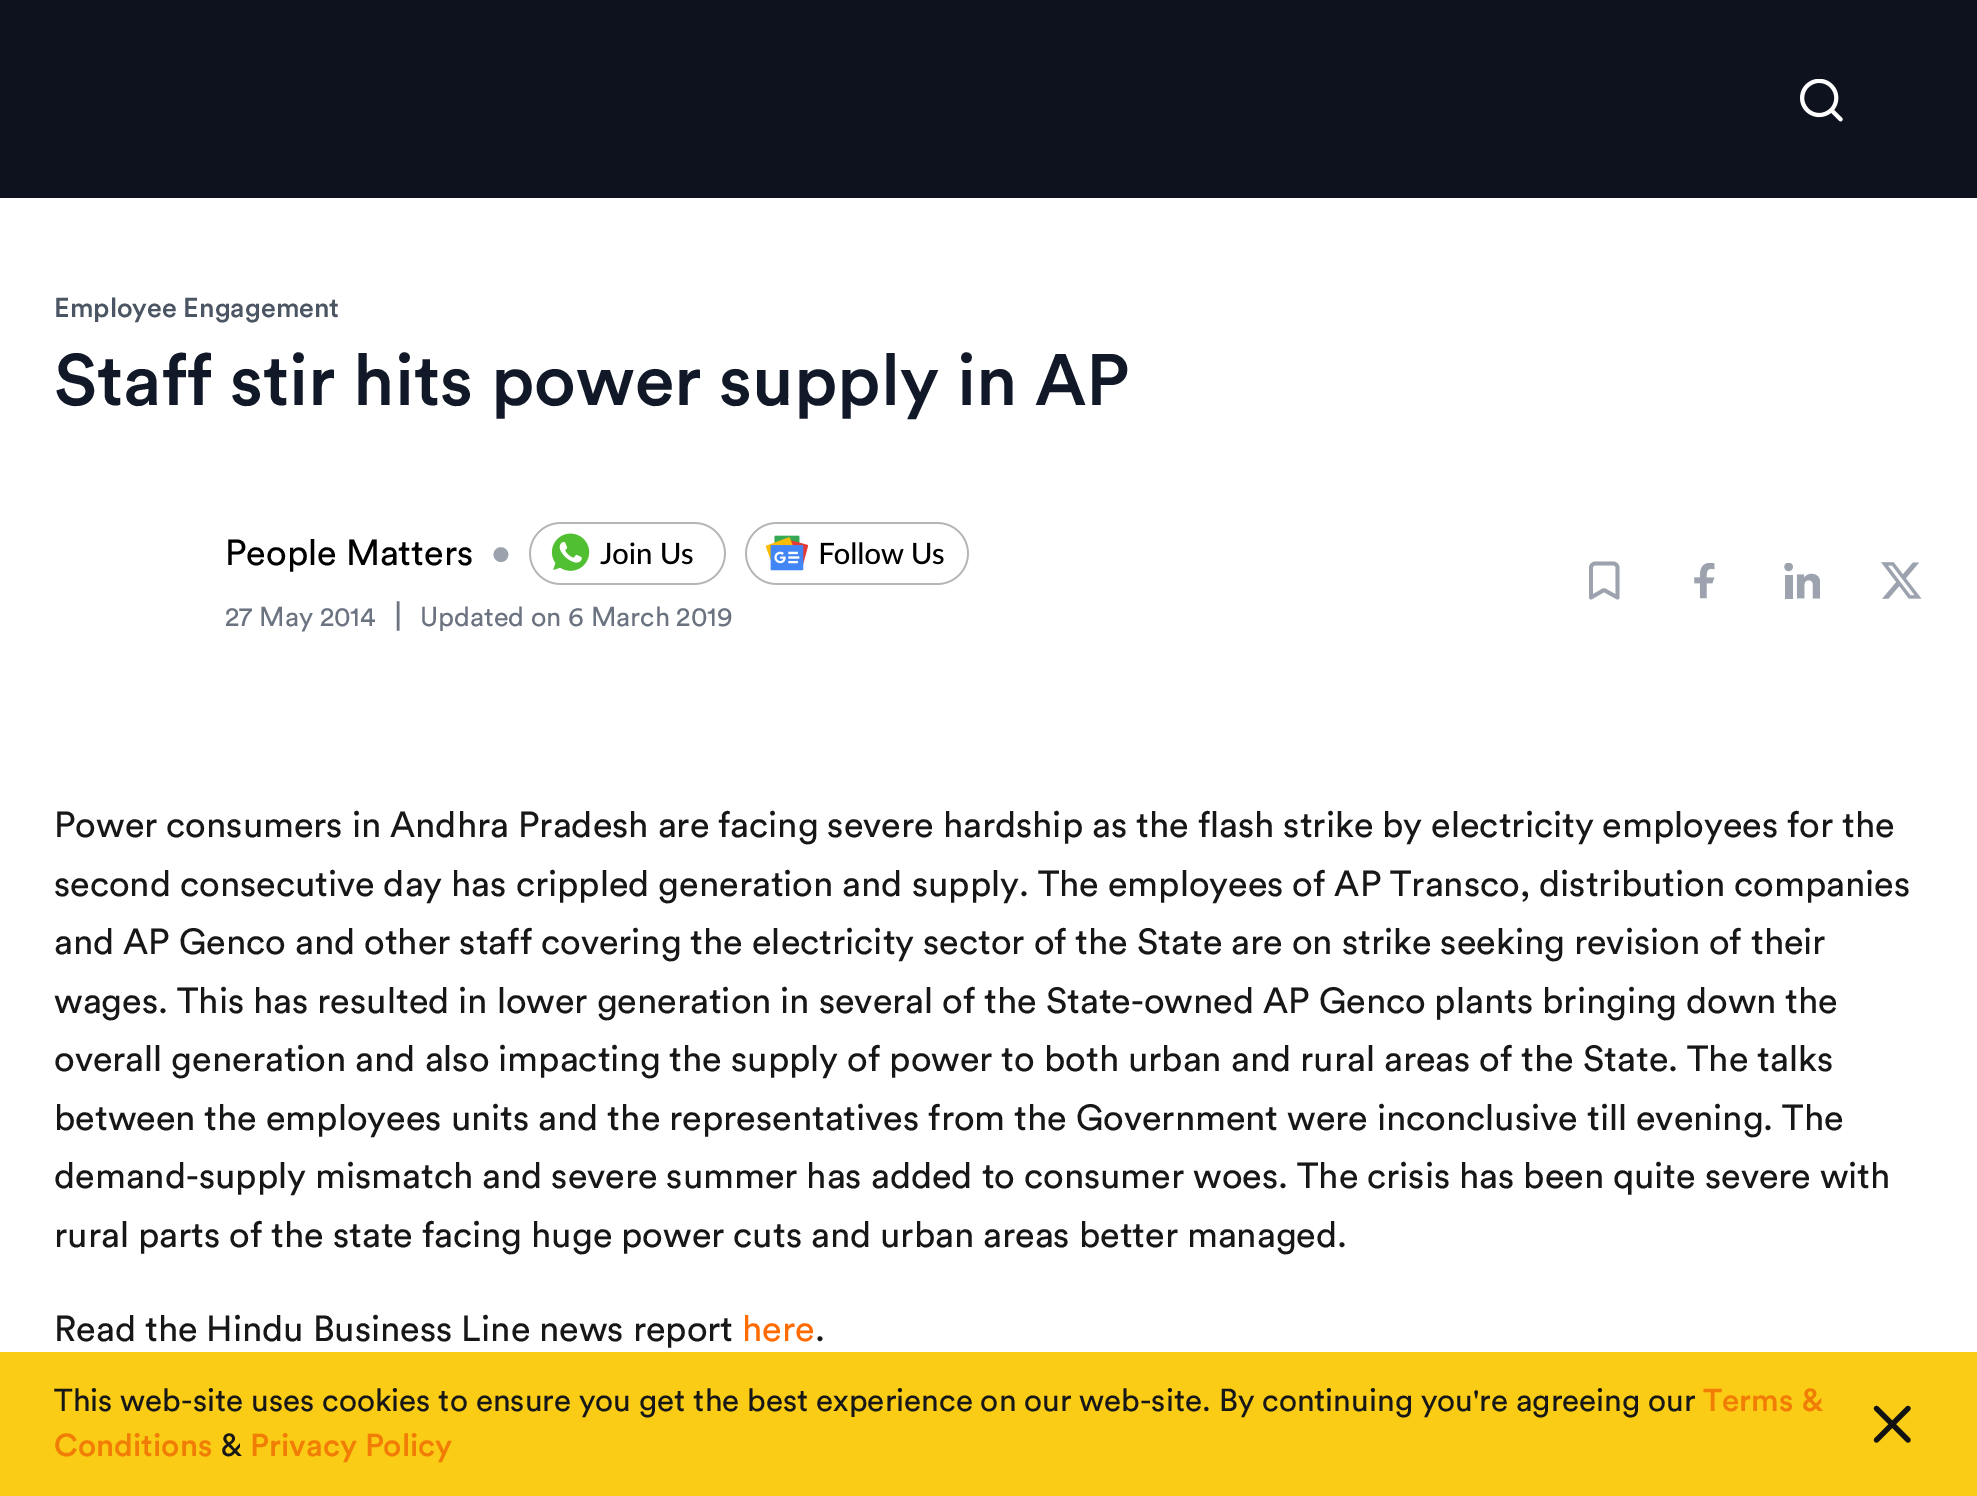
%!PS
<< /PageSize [1977 1496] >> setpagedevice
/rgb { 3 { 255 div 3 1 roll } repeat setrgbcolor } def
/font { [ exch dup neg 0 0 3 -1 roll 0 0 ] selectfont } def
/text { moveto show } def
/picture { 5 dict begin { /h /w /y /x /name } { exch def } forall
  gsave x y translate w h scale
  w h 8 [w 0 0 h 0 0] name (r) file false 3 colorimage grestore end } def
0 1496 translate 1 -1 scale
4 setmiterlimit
255 255 255 rgb
0 0 1977 1496 rectfill
13 18 30 rgb
0 0 1977 198 rectfill
(img_01.rgb) 1800 79 43 43 picture
(img_02.rgb) 529 522 197 63 picture
(img_03.rgb) 745 522 224 63 picture
156 163 175 rgb
3.8 setlinewidth
1 setlinecap
1 setlinejoin
1617.5 597.5 moveto -13.5 -7.5 rlineto -13 7.5 rlineto 0 -30 rlineto 0 -2 2 -4 4 -4 rcurveto 18.5 0 rlineto 2 0 4 2 4 4 rcurveto closepath stroke
(img_04.rgb) 1694 563 21 36 picture
(img_05.rgb) 1784 563 36 36 picture
(img_06.rgb) 1881 562 41 37 picture
250 204 21 rgb
0 1352 1977 144 rectfill
18 18 18 rgb
5.2 setlinewidth
1908 1408.5 moveto -31.5 31.5 rlineto 1876.5 1408.5 moveto 31.5 31.5 rlineto stroke
/Circular-Medium 27 font
75 85 99 rgb
(Employee Engagement) 54 317 text
/Circular-Medium 72 font
17 24 39 rgb
(Staff stir hits power supply in AP) 54 405 text
/Circular-Regular 36 font
0 0 0 rgb
(People Matters) 225 565 text
156 163 175 rgb
(•) 491 565 text
/Circular-Regular 27 font
107 114 128 rgb
(27 May 2014) 225 626 text
/Circular-Regular 31.5 font
(|) 394 626 text
/Circular-Regular 27 font
(Updated on 6 March 2019) 420 626 text
/Circular-Regular 36 font
23 23 23 rgb
(Power consumers in Andhra Pradesh are facing severe hardship as the flash strike by electricity employees for the) 54 837 text
(second consecutive day has crippled generation and supply. The employees of AP Transco, distribution companies) 54 896 text
(and AP Genco and other staff covering the electricity sector of the State are on strike seeking revision of their) 54 954 text
(wages. This has resulted in lower generation in several of the State-owned AP Genco plants bringing down the) 54 1013 text
(overall generation and also impacting the supply of power to both urban and rural areas of the State. The talks) 54 1071 text
(between the employees units and the representatives from the Government were inconclusive till evening. The) 54 1130 text
(demand-supply mismatch and severe summer has added to consumer woes. The crisis has been quite severe with) 54 1188 text
(rural parts of the state facing huge power cuts and urban areas better managed.) 54 1247 text
(Read the Hindu Business Line news report) 54 1341 text
255 107 0 rgb
(here) 742 1341 text
23 23 23 rgb
(.) 815 1341 text
/Circular-Regular 31.5 font
(This web-site uses cookies to ensure you get the best experience on our web-site. By continuing you're agreeing our) 54 1411 text
/Circular-Medium 31.5 font
241 124 6 rgb
(Terms &) 1703 1411 text
(Conditions) 54 1456 text
/Circular-Regular 31.5 font
23 23 23 rgb
(&) 220 1456 text
/Circular-Medium 31.5 font
241 124 6 rgb
(Privacy Policy) 250 1456 text
showpage
